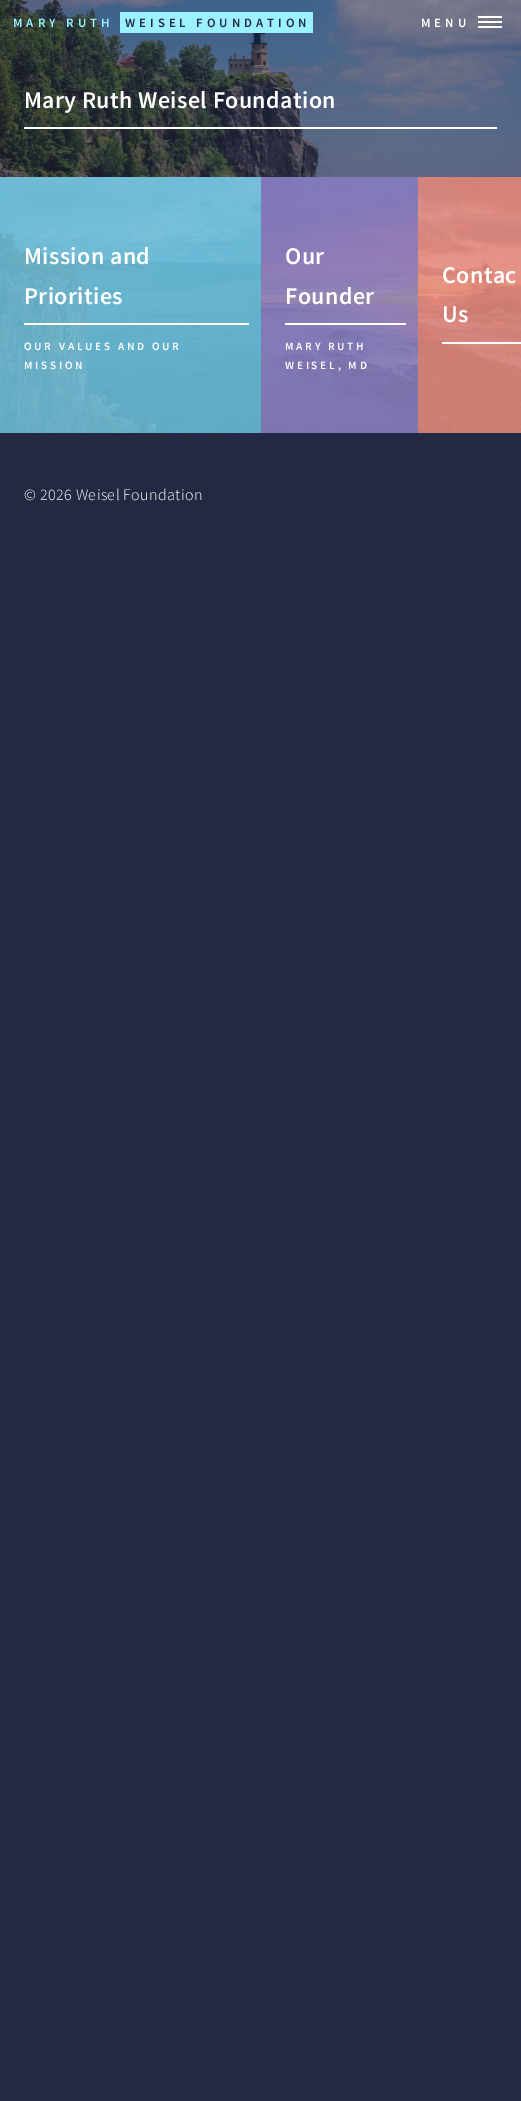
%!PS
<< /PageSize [521 2101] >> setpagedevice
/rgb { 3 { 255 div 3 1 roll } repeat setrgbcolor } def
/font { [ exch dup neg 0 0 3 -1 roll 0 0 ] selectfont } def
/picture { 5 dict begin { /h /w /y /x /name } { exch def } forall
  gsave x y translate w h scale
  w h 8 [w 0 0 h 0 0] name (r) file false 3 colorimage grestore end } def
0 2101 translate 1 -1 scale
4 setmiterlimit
36 41 67 rgb
0 0 521 2101 rectfill
(img_01.rgb) 0 0 521 177 picture
155 241 255 rgb
120 12 193 21 rectfill
255 255 255 rgb
478 16 24 2 rectfill
478 26 24 2 rectfill
478 21 24 2 rectfill
24 127 473 2 rectfill
(img_02.rgb) 0 177 261 256 picture
24 323 225 2 rectfill
(img_03.rgb) 261 177 157 256 picture
285 323 121 2 rectfill
(img_04.rgb) 418 177 103 256 picture
442 342 79 2 rectfill
/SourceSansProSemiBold-SemiBold 12.75 font
155 241 255 rgb
13 27 moveto 4 0 (MARY RUTH) ashow
36 41 67 rgb
125 27 moveto 4 0 (WEISEL FOUNDATION) ashow
255 255 255 rgb
421 27 moveto 4 0 (MENU) ashow
/SourceSansProSemiBold-SemiBold 24 font
24 108 moveto 0.4 0 (Mary Ruth Weisel Foundation) ashow
24 264 moveto 0.4 0 (Mission and) ashow
24 304 moveto 0.4 0 (Priorities) ashow
/SourceSansProSemiBold-SemiBold 11.25 font
24 350 moveto 2.75 0 (OUR VALUES AND OUR) ashow
24 369 moveto 2.75 0 (MISSION) ashow
/SourceSansProSemiBold-SemiBold 24 font
285 264 moveto 0.4 0 (Our) ashow
285 304 moveto 0.4 0 (Founder) ashow
/SourceSansProSemiBold-SemiBold 11.25 font
285 350 moveto 2.75 0 (MARY RUTH) ashow
285 369 moveto 2.75 0 (WEISEL, MD) ashow
/SourceSansProSemiBold-SemiBold 24 font
442 283 moveto 0.4 0 (Contac) ashow
442 322 moveto 0.4 0 (Us) ashow
/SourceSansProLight-Light 16 font
24 500 moveto 0.4 0 (© 2026 Weisel Foundation) ashow
showpage
